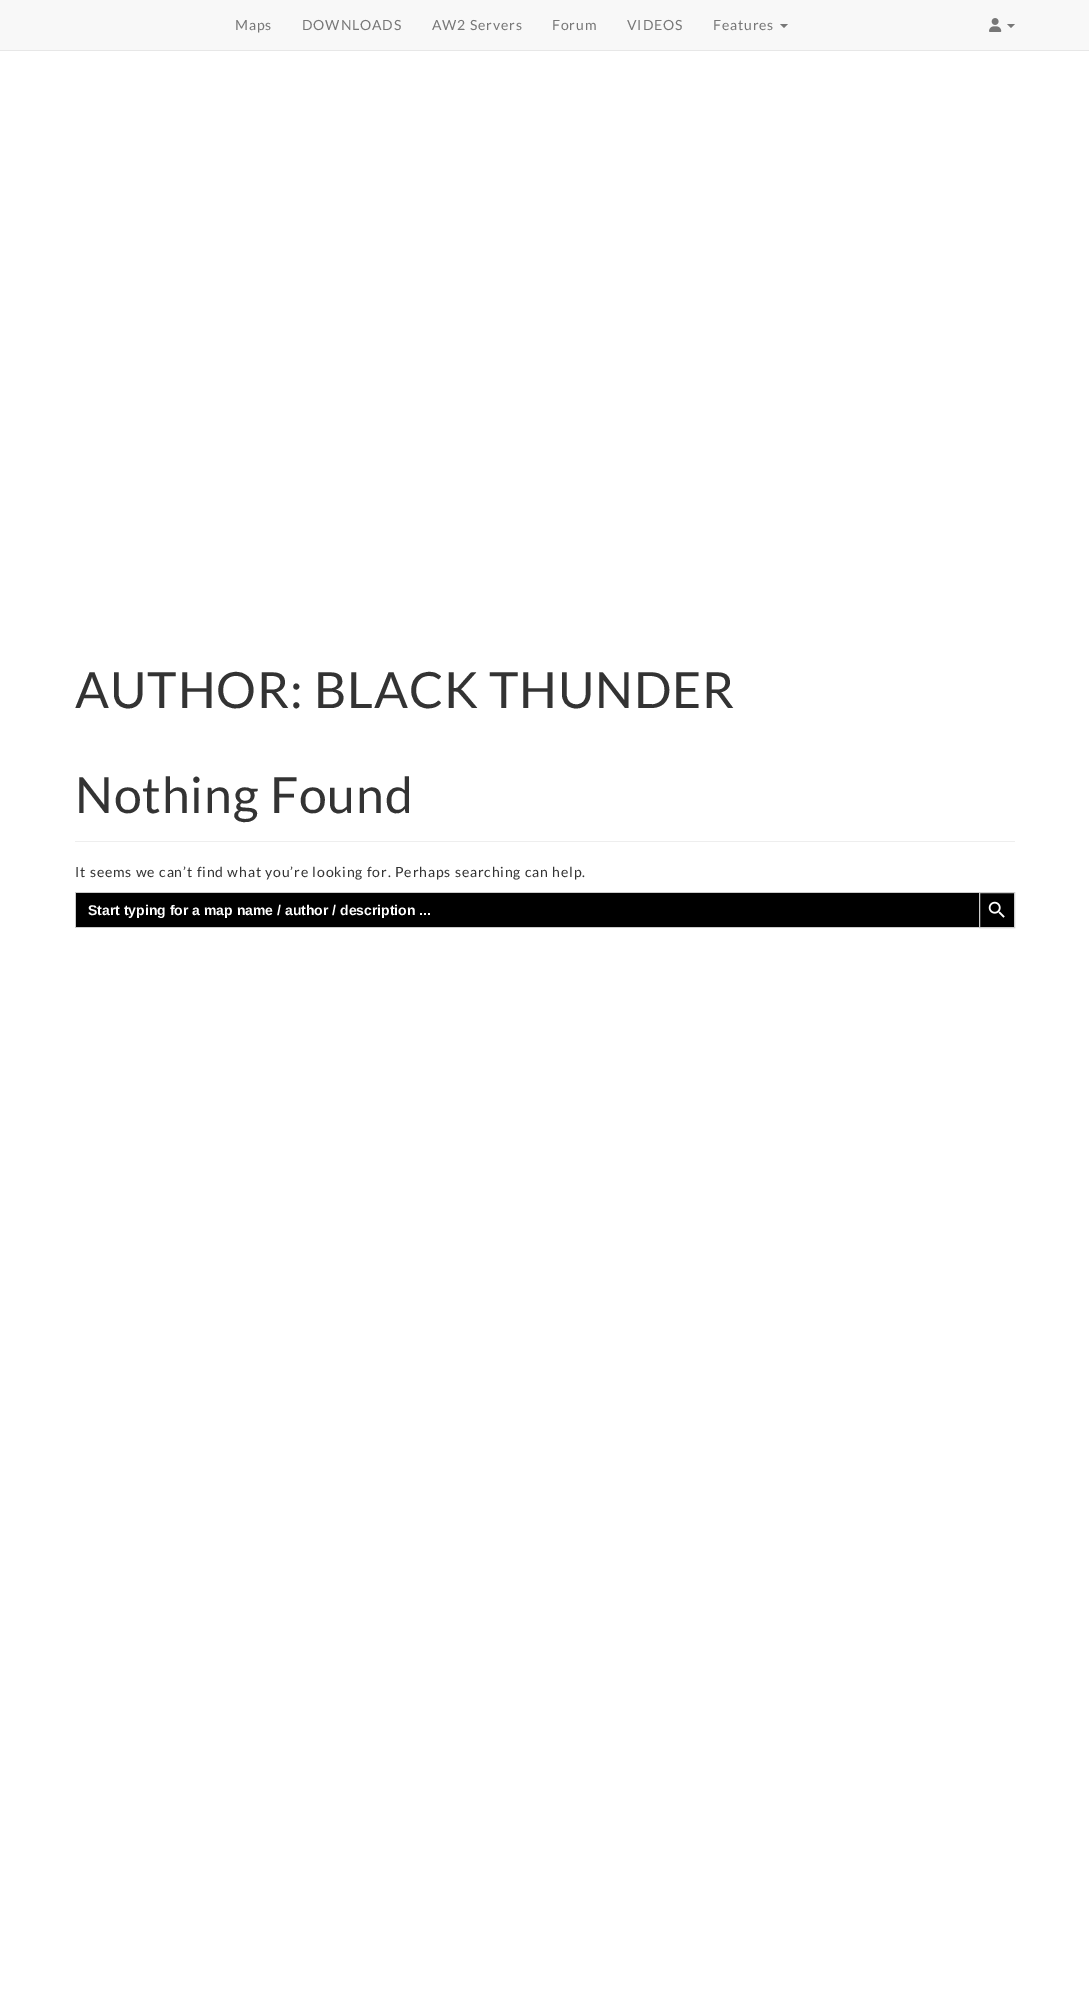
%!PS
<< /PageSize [1089 1989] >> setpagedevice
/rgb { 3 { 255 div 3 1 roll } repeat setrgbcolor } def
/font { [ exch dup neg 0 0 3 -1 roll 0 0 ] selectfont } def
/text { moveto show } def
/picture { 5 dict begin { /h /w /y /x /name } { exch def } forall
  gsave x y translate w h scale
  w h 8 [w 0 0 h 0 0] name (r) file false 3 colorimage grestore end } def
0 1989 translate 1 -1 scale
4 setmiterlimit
255 255 255 rgb
0 0 1089 1989 rectfill
248 248 248 rgb
0 0 1089 50 rectfill
231 231 231 rgb
0 50 1089 1 rectfill
119 119 119 rgb
780 24 moveto 8 0 rlineto -4 4 rlineto closepath fill
(img_01.rgb) 989 18 13 14 picture
1007 24 moveto 8 0 rlineto -4 4 rlineto closepath fill
238 238 238 rgb
75 841 940 1 rectfill
0 0 0 rgb
76 893 903 34 rectfill
204 204 204 rgb
75 892 904 1 rectfill
75 927 904 1 rectfill
75 892 1 36 rectfill
0 0 0 rgb
979.5 892.5 moveto 35 0 rlineto 0 35 rlineto -35 0 rlineto closepath gsave fill grestore
204 204 204 rgb
stroke
(img_02.rgb) 988 901 17 17 picture
/Lato-Regular 14 font
119 119 119 rgb
235 30 moveto 0.85 0 (Maps) ashow
302 30 moveto 0.85 0 (DOWNLOADS) ashow
432 30 moveto 0.85 0 (AW2 Servers) ashow
552 30 moveto 0.85 0 (Forum) ashow
627 30 moveto 0.85 0 (VIDEOS) ashow
713 30 moveto 0.85 0 (Features) ashow
/Lato-Regular 50 font
51 51 51 rgb
75 708 moveto 0.85 0 (AUTHOR: BLACK THUNDER) ashow
75 813 moveto 0.85 0 (Nothing Found) ashow
/Lato-Regular 14 font
75 877 moveto 0.85 0 (It seems we can’t find what you’re looking for. Perhaps searching can help.) ashow
/LiberationSans-Bold 14 font
255 255 255 rgb
(Start typing for a map name / author / description ...) 88 915 text
showpage
